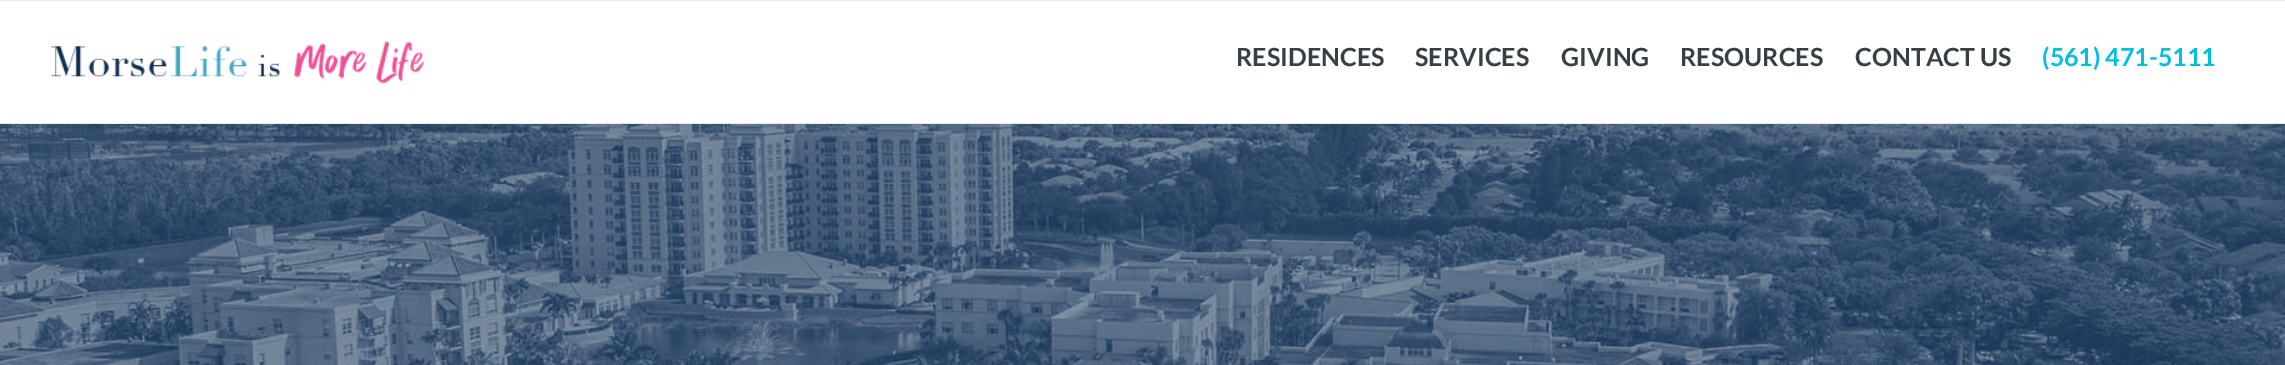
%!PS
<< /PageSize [2285 365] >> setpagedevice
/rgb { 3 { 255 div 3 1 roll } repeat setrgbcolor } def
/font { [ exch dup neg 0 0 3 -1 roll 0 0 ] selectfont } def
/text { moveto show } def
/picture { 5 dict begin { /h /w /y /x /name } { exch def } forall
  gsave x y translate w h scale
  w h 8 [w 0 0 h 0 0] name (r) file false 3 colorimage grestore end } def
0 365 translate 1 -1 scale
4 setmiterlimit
255 255 255 rgb
0 0 2285 365 rectfill
232 234 240 rgb
0 0 2285 1 rectfill
0 123 2285 1 rectfill
(img_01.rgb) 50 41 374 43 picture
(img_02.rgb) 0 124 2285 241 picture
/Lato-Bold 25 font
55 63 68 rgb
(RESIDENCES) 1236 66 text
(SERVICES) 1415 66 text
(GIVING) 1561 66 text
(RESOURCES) 1680 66 text
(CONTACT US) 1855 66 text
0 192 221 rgb
(\(561\) 471-5111) 2042 66 text
showpage
